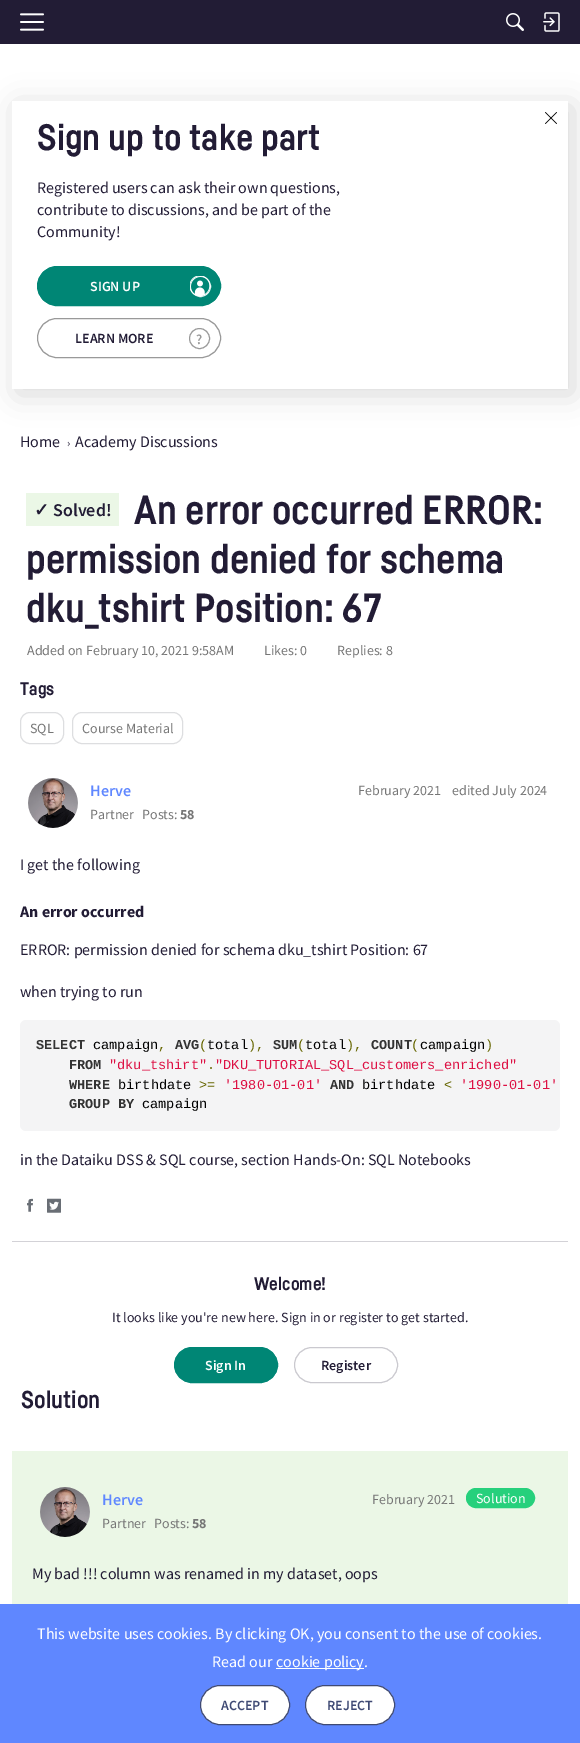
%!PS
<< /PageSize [580 1743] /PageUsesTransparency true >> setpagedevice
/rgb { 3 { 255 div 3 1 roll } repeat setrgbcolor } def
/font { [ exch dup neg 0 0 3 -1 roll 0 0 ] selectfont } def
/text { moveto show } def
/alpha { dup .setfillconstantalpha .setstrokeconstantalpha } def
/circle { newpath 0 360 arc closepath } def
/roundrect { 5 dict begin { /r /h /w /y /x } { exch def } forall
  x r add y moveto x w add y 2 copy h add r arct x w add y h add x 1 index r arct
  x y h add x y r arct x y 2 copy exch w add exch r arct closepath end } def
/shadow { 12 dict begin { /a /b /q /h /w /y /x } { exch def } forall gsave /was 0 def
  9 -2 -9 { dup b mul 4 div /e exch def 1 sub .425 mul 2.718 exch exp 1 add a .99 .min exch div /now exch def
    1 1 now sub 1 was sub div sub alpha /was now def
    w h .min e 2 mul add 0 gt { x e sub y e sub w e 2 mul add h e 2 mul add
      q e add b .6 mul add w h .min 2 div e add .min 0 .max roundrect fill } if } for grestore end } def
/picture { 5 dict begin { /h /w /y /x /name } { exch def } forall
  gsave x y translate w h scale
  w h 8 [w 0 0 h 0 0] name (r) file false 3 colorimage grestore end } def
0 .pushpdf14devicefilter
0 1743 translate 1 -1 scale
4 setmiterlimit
255 255 255 rgb
0 0 580 1743 rectfill
34 28 53 rgb
0 0 580 44 rectfill
(img_01.rgb) 20 13 24 18 picture
(img_02.rgb) 506 13 18 18 picture
(img_03.rgb) 543 12 17 20 picture
gsave
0 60 moveto 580 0 rlineto 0 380 rlineto -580 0 rlineto closepath 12 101 moveto 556 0 rlineto 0 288 rlineto -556 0 rlineto closepath eoclip newpath
0 0 0 rgb
17 106 556 288 0 15 0.15 shadow
grestore
0 0 0 rgb
556.5 112 moveto 0.5 0.5 rlineto -11.5 11.5 rlineto -0.5 -0.5 rlineto closepath fill
545 112.5 moveto 0.5 -0.5 rlineto 11.5 11.5 rlineto -0.5 0.5 rlineto closepath fill
0 134 117 rgb
37.5 266.5 183 39 19.5 roundrect gsave fill grestore
stroke
255 255 255 rgb
200.5 286.5 10 circle stroke
(img_04.rgb) 190 276 21 21 picture
153 153 153 rgb
37.5 318.5 183 39 19.5 roundrect stroke
199.5 338.5 10 circle stroke
235 247 230 rgb
26 493 93 33 rectfill
221 222 224 rgb
20.5 712.5 43 31 9.5 roundrect stroke
72.5 712.5 110 31 9.5 roundrect stroke
(img_05.rgb) 28 778 50 50 picture
244 244 245 rgb
20 1020 540 111 6 roundrect fill
(img_06.rgb) 27 1198 6 14 picture
(img_07.rgb) 47 1198 14 15 picture
211 210 215 rgb
12 1241 556 1 rectfill
0 134 117 rgb
174.5 1347.5 103 35 17.5 roundrect gsave fill grestore
stroke
202 201 207 rgb
294.5 1347.5 103 35 17.5 roundrect stroke
235 247 230 rgb
12 1451 556 153 rectfill
(img_08.rgb) 40 1487 50 50 picture
38 208 124 rgb
466.5 1488.5 68 19 9.5 roundrect gsave fill grestore
stroke
95 135 255 rgb
0 1604 580 139 rectfill
255 255 255 rgb
276 1668 88 1 rectfill
200.5 1685.5 89 39 19.5 roundrect gsave fill grestore
63 74 116 rgb
stroke
255 255 255 rgb
305.5 1685.5 89 39 19.5 roundrect gsave fill grestore
63 74 116 rgb
stroke
/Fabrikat-Bold 36 font
34 28 53 rgb
(Sign up to take part) 37 150 text
/SourceSansPro-Regular 16 font
(Registered users can ask their own questions,) 37 193 text
(contribute to discussions, and be part of the) 37 215 text
(Community!) 37 237 text
/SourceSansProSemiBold-SemiBold 14 font
255 255 255 rgb
(SIGN UP) 90 291 text
34 28 53 rgb
(LEARN MORE) 75 343 text
153 153 153 rgb
(?) 196 344 text
/SourceSansPro-Regular 16 font
34 28 53 rgb
(Home) 20 447 text
/SourceSansPro-Regular 12 font
(›) 67 447 text
/SourceSansPro-Regular 16 font
(Academy Discussions) 75 447 text
/DejaVuSans-Bold 18 font
(✓) 34 516 text
/SourceSansProSemiBold-SemiBold 18 font
(Solved!) 53 516 text
/Fabrikat-Bold 40 font
(An error occurred ERROR:) 134 524 text
(permission denied for schema) 26 573 text
(dku_tshirt Position: 67) 26 622 text
/SourceSansPro-Regular 14 font
118 118 118 rgb
(Added on February 10, 2021 9:58AM) 27 655 text
(Likes: 0) 264 655 text
(Replies: 8) 337 655 text
/Fabrikat-Bold 18 font
34 28 53 rgb
(Tags) 20 695 text
/SourceSansPro-Regular 14 font
118 118 118 rgb
(SQL) 30 733 text
(Course Material) 82 733 text
/SourceSansProSemiBold-SemiBold 16 font
95 135 255 rgb
(Herve) 90 796 text
/SourceSansPro-Regular 14 font
118 118 118 rgb
(Partner) 90 819 text
(Posts:) 142 819 text
/SourceSansPro-Bold 14 font
(58) 180 819 text
/SourceSansPro-Regular 14 font
(February 2021) 358 795 text
(edited July 2024) 452 795 text
/SourceSansPro-Regular 16 font
34 28 53 rgb
(I get the following) 20 870 text
/SourceSansPro-Bold 16 font
(An error occurred) 20 917 text
/SourceSansPro-Regular 16 font
(ERROR: permission denied for schema dku_tshirt Position: 67) 20 955 text
(when trying to run) 20 997 text
/LiberationMono-Bold 13.6 font
51 51 51 rgb
(SELECT) 36 1049 text
/LiberationMono-Regular 13.6 font
0 0 0 rgb
(campaign) 93 1049 text
102 102 0 rgb
(,) 158 1049 text
/LiberationMono-Bold 13.6 font
51 51 51 rgb
(AVG) 175 1049 text
/LiberationMono-Regular 13.6 font
102 102 0 rgb
(\() 199 1049 text
0 0 0 rgb
(total) 207 1049 text
102 102 0 rgb
(\),) 248 1049 text
/LiberationMono-Bold 13.6 font
51 51 51 rgb
(SUM) 273 1049 text
/LiberationMono-Regular 13.6 font
102 102 0 rgb
(\() 297 1049 text
0 0 0 rgb
(total) 305 1049 text
102 102 0 rgb
(\),) 346 1049 text
/LiberationMono-Bold 13.6 font
51 51 51 rgb
(COUNT) 371 1049 text
/LiberationMono-Regular 13.6 font
102 102 0 rgb
(\() 411 1049 text
0 0 0 rgb
(campaign) 420 1049 text
102 102 0 rgb
(\)) 485 1049 text
/LiberationMono-Bold 13.6 font
51 51 51 rgb
(FROM) 69 1069 text
/LiberationMono-Regular 13.6 font
221 17 68 rgb
("dku_tshirt" "DKU_TUTORIAL_SQL_customers_enriched") 109 1069 text
102 102 0 rgb
(.) 207 1069 text
/LiberationMono-Bold 13.6 font
51 51 51 rgb
(WHERE) 69 1089 text
/LiberationMono-Regular 13.6 font
0 0 0 rgb
(birthdate) 118 1089 text
102 102 0 rgb
(>=) 199 1089 text
221 17 68 rgb
('1980-01-01') 224 1089 text
/LiberationMono-Bold 13.6 font
51 51 51 rgb
(AND) 330 1089 text
/LiberationMono-Regular 13.6 font
0 0 0 rgb
(birthdate) 362 1089 text
102 102 0 rgb
(<) 444 1089 text
221 17 68 rgb
('1990-01-01') 460 1089 text
/LiberationMono-Bold 13.6 font
51 51 51 rgb
(GROUP BY) 69 1108 text
/LiberationMono-Regular 13.6 font
0 0 0 rgb
(campaign) 142 1108 text
/SourceSansPro-Regular 16 font
34 28 53 rgb
(in the Dataiku DSS & SQL course, section Hands-On: SQL Notebooks) 20 1165 text
/Fabrikat-Bold 18 font
(Welcome!) 254 1290 text
/SourceSansPro-Regular 14 font
(It looks like you're new here. Sign in or register to get started.) 112 1322 text
/SourceSansProSemiBold-SemiBold 14 font
255 255 255 rgb
(Sign In) 205 1370 text
34 28 53 rgb
(Register) 321 1370 text
/Fabrikat-Bold 24 font
(Solution) 21 1408 text
/SourceSansProSemiBold-SemiBold 16 font
95 135 255 rgb
(Herve) 102 1505 text
/SourceSansPro-Regular 14 font
118 118 118 rgb
(Partner) 102 1528 text
(Posts:) 154 1528 text
/SourceSansPro-Bold 14 font
(58) 192 1528 text
/SourceSansPro-Regular 14 font
(February 2021) 372 1504 text
255 255 255 rgb
(Solution) 476 1503 text
/SourceSansPro-Regular 16 font
34 28 53 rgb
(My bad !!! column was renamed in my dataset, oops) 32 1579 text
255 255 255 rgb
(This website uses cookies. By clicking OK, you consent to the use of cookies.) 37 1639 text
(Read our) 212 1667 text
(cookie policy.) 276 1667 text
/SourceSansProSemiBold-SemiBold 14 font
63 74 116 rgb
(ACCEPT) 221 1710 text
(REJECT) 327 1710 text
.poppdf14devicefilter showpage
